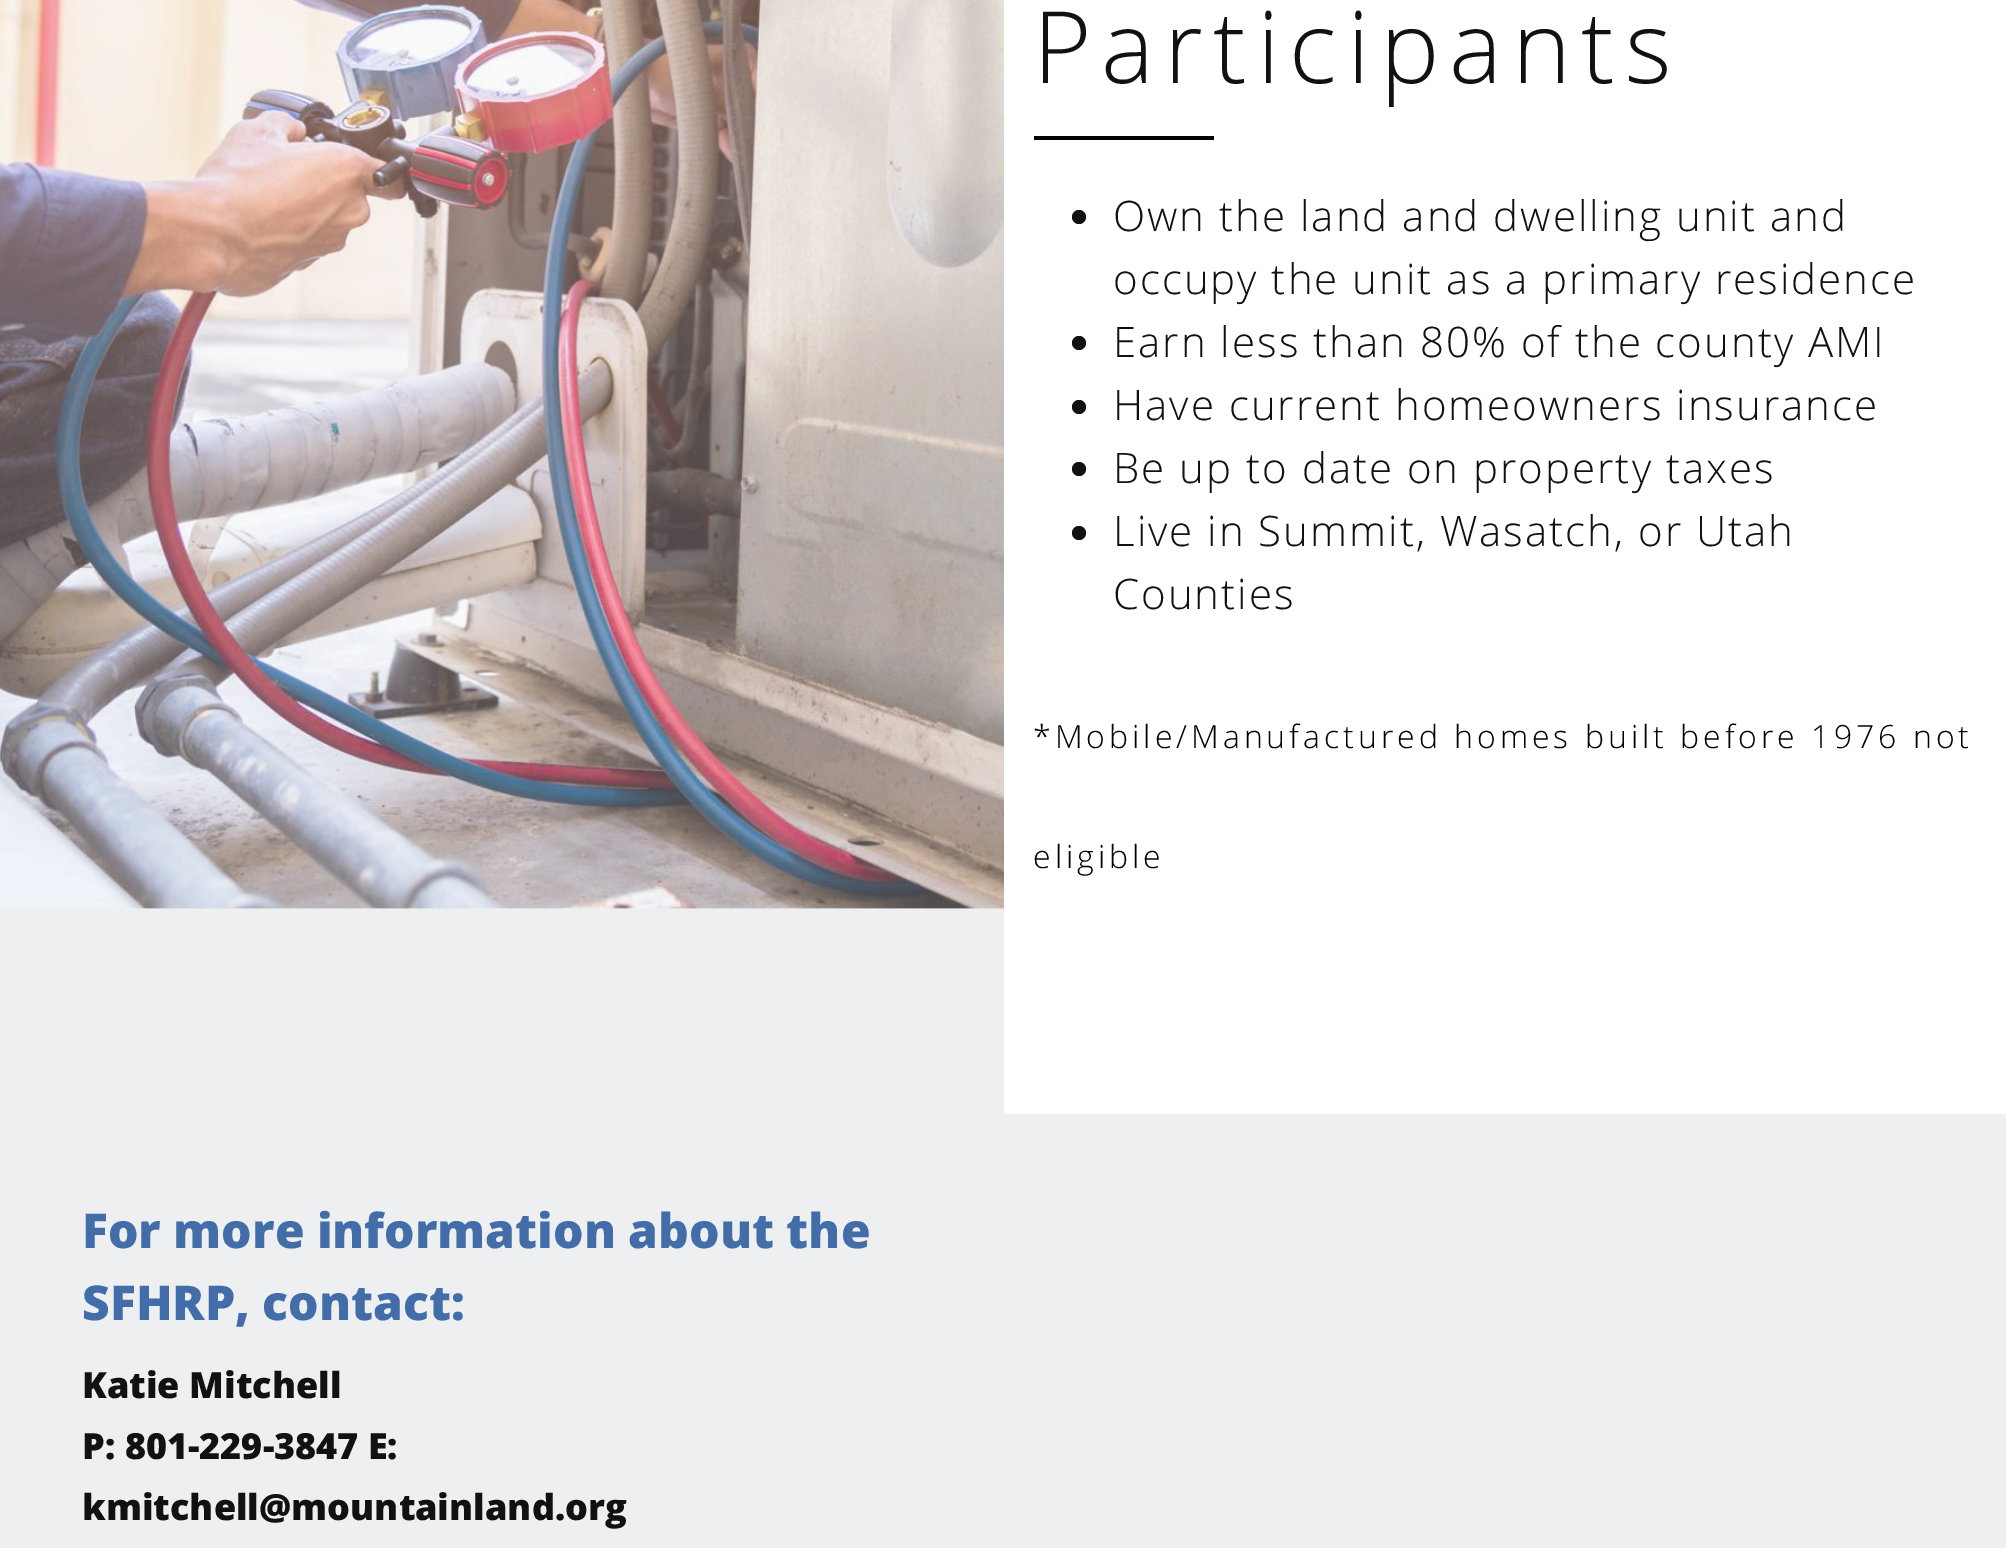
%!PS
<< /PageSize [2006 1548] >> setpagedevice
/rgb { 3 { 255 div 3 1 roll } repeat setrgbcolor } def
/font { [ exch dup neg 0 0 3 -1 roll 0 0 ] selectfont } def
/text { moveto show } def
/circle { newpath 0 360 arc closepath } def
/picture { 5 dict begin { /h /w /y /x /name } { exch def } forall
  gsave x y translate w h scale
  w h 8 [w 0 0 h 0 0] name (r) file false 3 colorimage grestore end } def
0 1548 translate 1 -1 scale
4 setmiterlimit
238 239 240 rgb
0 0 2006 1548 rectfill
(img_01.rgb) 0 0 1004 909 picture
255 255 255 rgb
1004 0 1002 1114 rectfill
0 0 0 rgb
1034 136 180 4 rectfill
17 17 17 rgb
1079 217 7 circle fill
1079 343 7 circle fill
1079 407 7 circle fill
1079 469 7 circle fill
1079 533 7 circle fill
/OpenSans-Light 100 font
1033 83 moveto 10 0 (Participants) ashow
/OpenSans-Light 42 font
1113 231 moveto 2 0 (Own the land and dwelling unit and) ashow
1113 294 moveto 2 0 (occupy the unit as a primary residence) ashow
1113 357 moveto 2 0 (Earn less than 80% of the county AMI) ashow
1113 420 moveto 2 0 (Have current homeowners insurance) ashow
1113 483 moveto 2 0 (Be up to date on property taxes) ashow
1113 546 moveto 2 0 (Live in Summit, Wasatch, or Utah) ashow
1113 609 moveto 2 0 (Counties) ashow
/OpenSans-Light 32 font
0 0 0 rgb
1033 748 moveto 4 0 (*Mobile/Manufactured homes built before 1976 not) ashow
1033 868 moveto 4 0 (eligible) ashow
/OpenSans-ExtraBold 48 font
66 109 169 rgb
(For more information about the) 82 1248 text
(SFHRP, contact:) 82 1320 text
/OpenSans-ExtraBold 36 font
17 17 17 rgb
(Katie Mitchell) 82 1398 text
(P: 801-229-3847 E:) 82 1459 text
(kmitchell@mountainland.org) 82 1520 text
showpage
